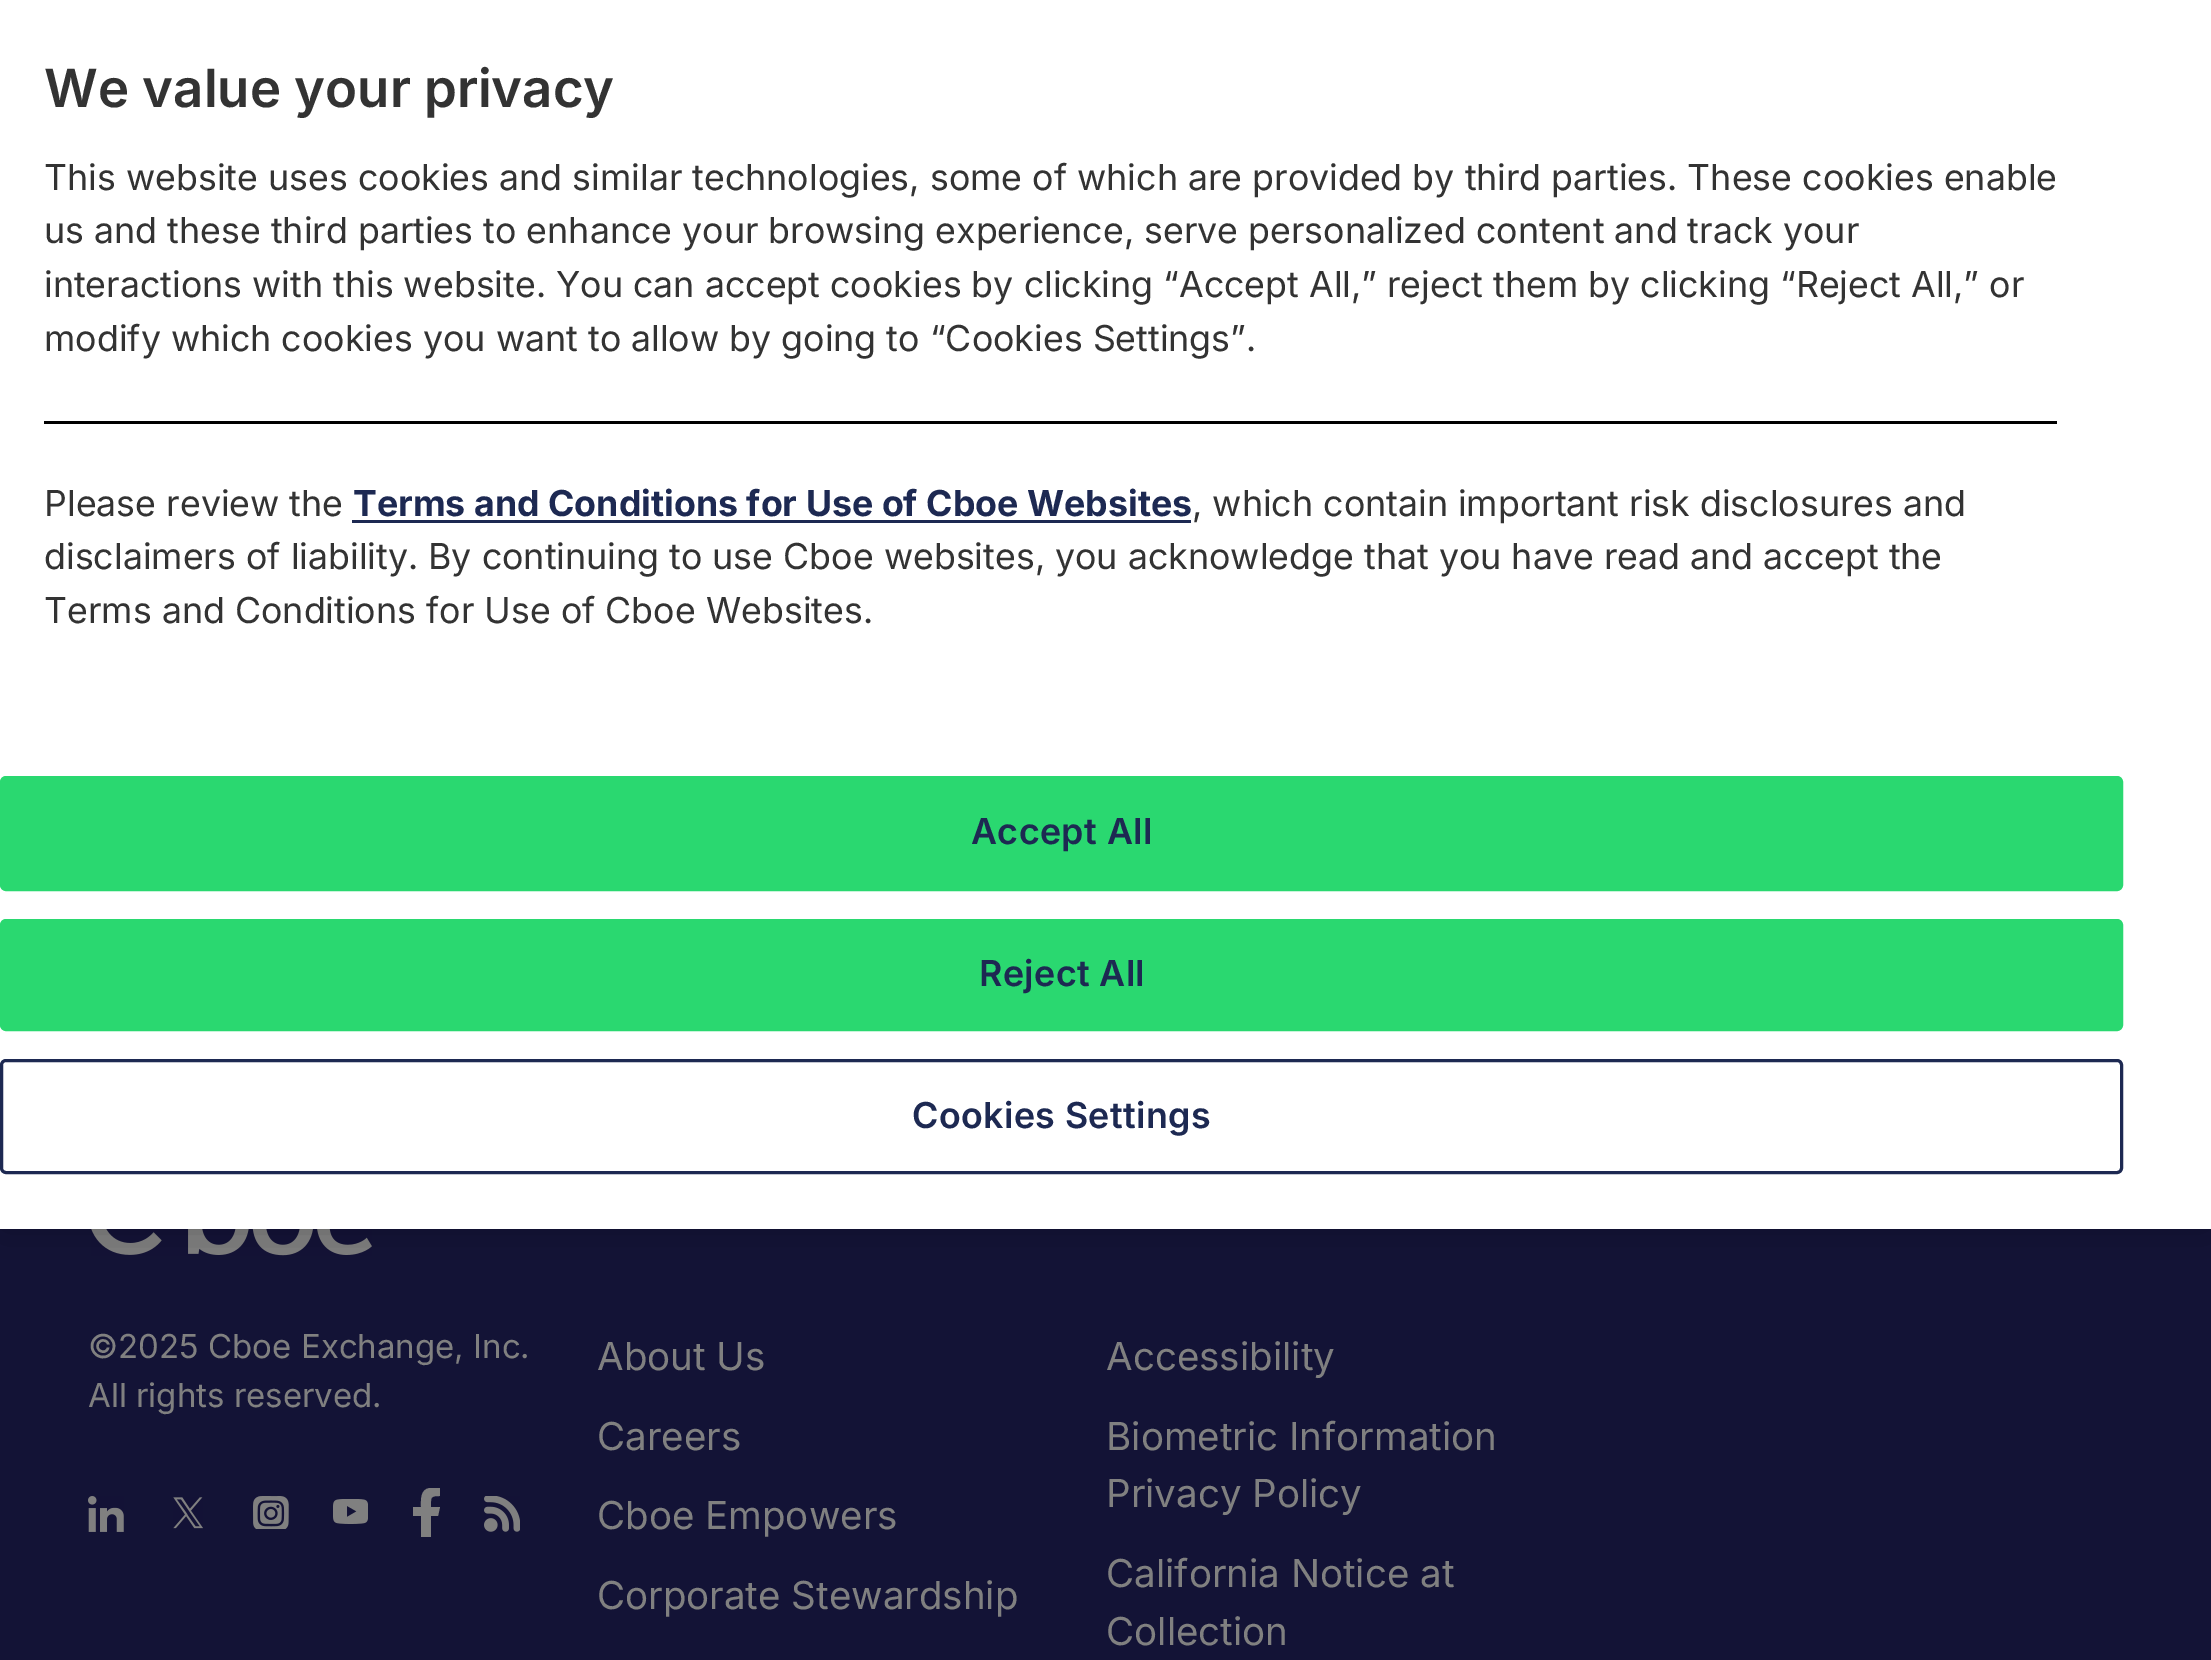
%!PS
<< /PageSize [2211 1660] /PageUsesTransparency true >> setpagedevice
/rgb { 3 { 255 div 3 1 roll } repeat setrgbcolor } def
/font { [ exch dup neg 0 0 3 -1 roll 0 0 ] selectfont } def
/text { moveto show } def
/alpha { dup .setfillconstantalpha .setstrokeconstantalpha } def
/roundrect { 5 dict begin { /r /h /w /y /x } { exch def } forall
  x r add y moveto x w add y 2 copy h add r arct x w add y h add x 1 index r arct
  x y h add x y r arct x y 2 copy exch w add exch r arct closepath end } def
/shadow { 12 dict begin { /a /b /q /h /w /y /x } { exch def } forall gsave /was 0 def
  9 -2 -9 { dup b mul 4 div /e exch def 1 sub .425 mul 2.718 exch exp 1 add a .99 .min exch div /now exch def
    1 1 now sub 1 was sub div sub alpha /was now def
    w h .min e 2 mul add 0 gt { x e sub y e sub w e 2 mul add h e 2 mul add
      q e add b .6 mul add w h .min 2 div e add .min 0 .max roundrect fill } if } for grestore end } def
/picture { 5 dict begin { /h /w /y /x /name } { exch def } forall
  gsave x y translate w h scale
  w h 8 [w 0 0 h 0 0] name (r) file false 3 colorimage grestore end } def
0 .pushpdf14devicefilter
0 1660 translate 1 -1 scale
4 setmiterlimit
19 19 54 rgb
0 0 2211 1660 rectfill
(img_01.rgb) 91 1229 281 27 picture
0 0 0 rgb
0 0 2211 1229 0 25 0.2 shadow
255 255 255 rgb
0 0 2211 1229 rectfill
0 0 0 rgb
44 421 2013 3 rectfill
29 41 82 rgb
352 520 839 3 rectfill
42 216 112 rgb
1.5 777.5 2120 112 4.5 roundrect gsave fill grestore
3 setlinewidth
stroke
1.5 920.5 2120 109 4.5 roundrect gsave fill grestore
stroke
29 41 82 rgb
1.5 1060.5 2120 112 4.5 roundrect stroke
(img_02.rgb) 88 1496 36 36 picture
(img_03.rgb) 173 1497 30 32 picture
(img_04.rgb) 253 1496 36 33 picture
(img_05.rgb) 333 1499 35 25 picture
gsave
413 1488 27 49 rectclip
128 128 128 rgb
421 1539 moveto 10 0 rlineto 0 -23 rlineto 7 0 rlineto 2 -9 rlineto -9 0 rlineto 0 -10 -1 -11 9 -11 rcurveto 0 -8 rlineto -10 0 rlineto -10 1 -9 12 -9 19 rcurveto -8 0 rlineto 0 9 rlineto 8 0 rlineto closepath eofill
grestore
(img_06.rgb) 484 1496 36 36 picture
/Inter-SemiBold 52.75 font
51 51 51 rgb
(We value your privacy) 44 107 text
/Inter-Regular 35.77 font
(This website uses cookies and similar technologies, some of which are provided by third parties. These cookies enable) 44 190 text
(us and these third parties to enhance your browsing experience, serve personalized content and track your) 44 243 text
(interactions with this website. You can accept cookies by clicking “Accept All,” reject them by clicking “Reject All,” or) 44 297 text
(modify which cookies you want to allow by going to “Cookies Settings”.) 44 351 text
(Please review the) 44 516 text
/Inter-Bold 35.77 font
29 41 82 rgb
(Terms and Conditions for Use of Cboe Websites) 353 516 text
/Inter-Regular 35.77 font
51 51 51 rgb
(, which contain important risk disclosures and) 1192 516 text
(disclaimers of liability. By continuing to use Cboe websites, you acknowledge that you have read and accept the) 44 569 text
(Terms and Conditions for Use of Cboe Websites.) 44 623 text
/Inter-SemiBold 35.77 font
29 41 82 rgb
971 844 moveto 0.4 0 (Accept All) ashow
979 986 moveto 0.4 0 (Reject All) ashow
912 1128 moveto 0.4 0 (Cookies Settings) ashow
/Inter-Regular 33 font
128 128 128 rgb
(©2025 Cboe Exchange, Inc.) 88 1358 text
(All rights reserved.) 88 1407 text
/Inter-Regular 38.5 font
(About Us) 597 1370 text
(Careers) 597 1450 text
(Cboe Empowers) 597 1529 text
(Corporate Stewardship) 597 1609 text
(Accessibility) 1106 1370 text
(Biometric Information) 1106 1450 text
(Privacy Policy) 1106 1507 text
(California Notice at) 1106 1587 text
(Collection) 1106 1645 text
.poppdf14devicefilter showpage
